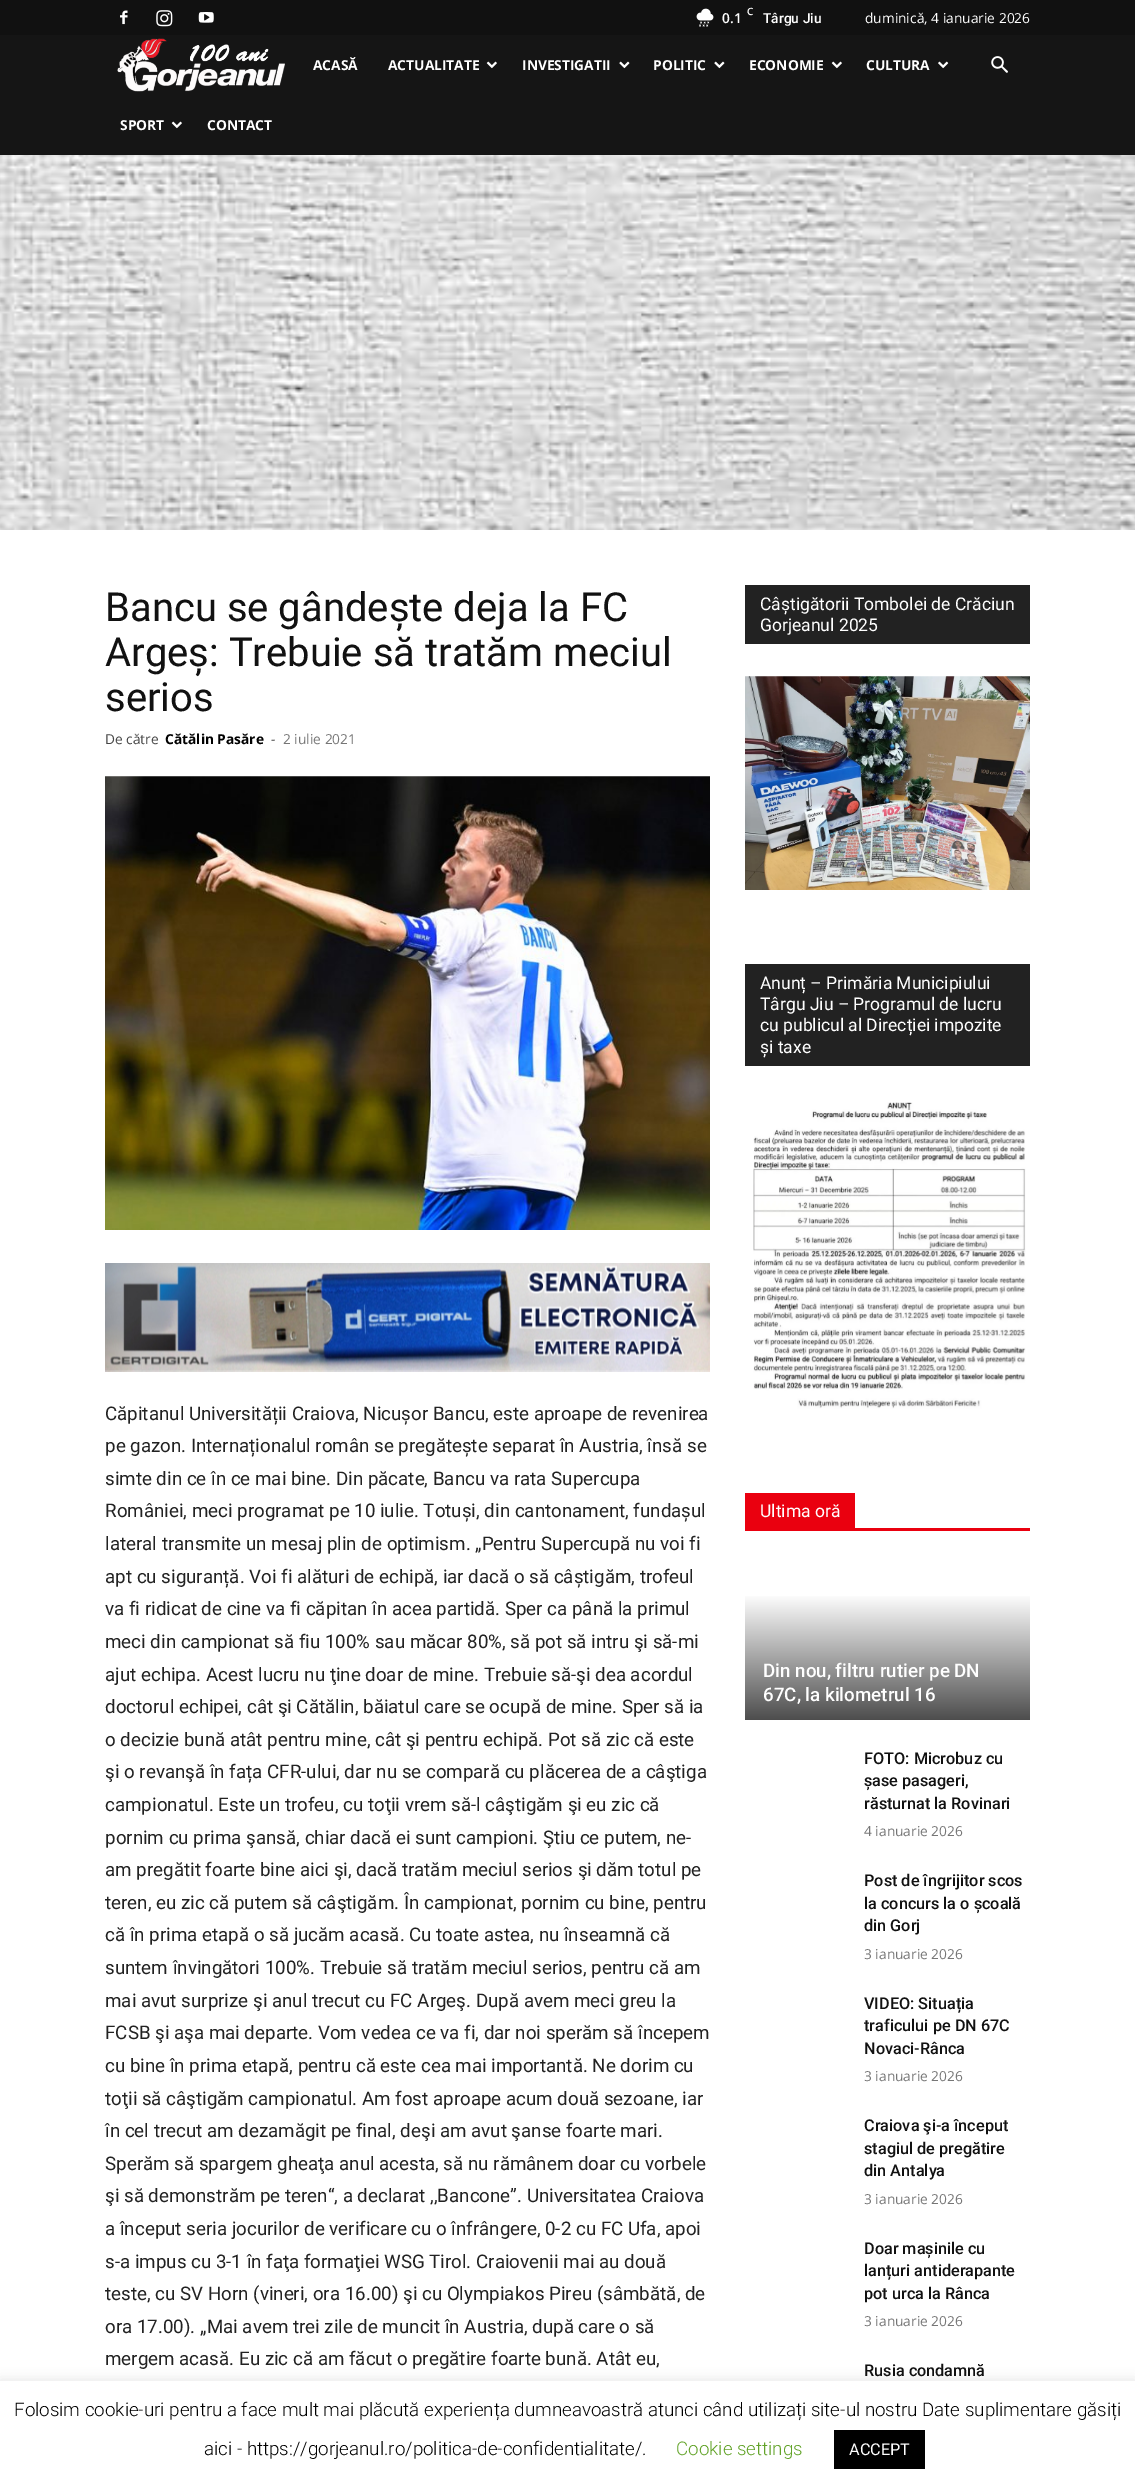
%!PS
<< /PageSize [1135 2490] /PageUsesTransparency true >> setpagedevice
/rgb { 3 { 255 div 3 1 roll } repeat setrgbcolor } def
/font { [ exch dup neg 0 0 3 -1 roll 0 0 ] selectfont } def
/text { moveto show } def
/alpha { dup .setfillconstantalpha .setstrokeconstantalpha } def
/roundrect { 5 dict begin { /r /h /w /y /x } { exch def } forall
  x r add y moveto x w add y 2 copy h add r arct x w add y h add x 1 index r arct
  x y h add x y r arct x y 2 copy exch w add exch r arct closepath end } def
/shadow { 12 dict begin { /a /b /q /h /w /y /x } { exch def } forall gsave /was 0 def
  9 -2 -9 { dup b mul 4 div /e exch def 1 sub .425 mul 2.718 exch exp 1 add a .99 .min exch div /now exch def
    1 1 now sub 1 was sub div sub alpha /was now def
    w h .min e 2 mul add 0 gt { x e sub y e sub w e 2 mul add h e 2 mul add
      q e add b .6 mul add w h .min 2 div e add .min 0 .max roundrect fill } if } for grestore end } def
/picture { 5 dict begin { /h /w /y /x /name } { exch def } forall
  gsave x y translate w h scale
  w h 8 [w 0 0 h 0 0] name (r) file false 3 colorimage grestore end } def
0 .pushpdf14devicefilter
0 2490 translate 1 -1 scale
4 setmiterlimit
255 255 255 rgb
0 0 1135 2490 rectfill
17 17 17 rgb
0 0 1135 35 rectfill
(img_01.rgb) 120 10 8 15 picture
(img_02.rgb) 156 10 17 17 picture
(img_03.rgb) 198 12 16 11 picture
(img_04.rgb) 696 8 18 19 picture
21 21 21 rgb
0 35 1135 120 rectfill
(img_05.rgb) 117 38 168 54 picture
(img_06.rgb) 486 61 11 8 picture
(img_07.rgb) 619 61 11 8 picture
(img_07.rgb) 714 61 11 8 picture
(img_06.rgb) 831 61 11 8 picture
(img_08.rgb) 938 61 11 8 picture
(img_06.rgb) 171 121 11 8 picture
(img_09.rgb) 991 56 17 17 picture
(img_10.rgb) 105 776 605 454 picture
(img_11.rgb) 105 1263 605 109 picture
34 34 34 rgb
745 585 285 59 rectfill
(img_12.rgb) 745 676 285 214 picture
745 964 285 102 rectfill
(img_13.rgb) 753 1102 273 307 picture
234 0 15 rgb
745 1528 285 3 rectfill
745 1493 110 35 rectfill
gsave 745 1596 moveto 285 0 rlineto 0 124 rlineto -285 0 rlineto closepath clip newpath
<< /ShadingType 2 /ColorSpace /DeviceRGB /Coords [888 1594 888 1720] /Extend [true true] /Function << /FunctionType 2 /Domain [0 1] /C0 [1 1 1] /C1 [0.302 0.302 0.302] /N 1 >> >> shfill grestore
(img_14.rgb) 0 155 1135 375 picture
172 171 171 rgb
0 2380 1135 109 0 6 0.3 shadow
255 255 255 rgb
0 2381 1135 109 rectfill
0 0 0 rgb
834 2430 91 39 rectfill
/OpenSans-SemiBold 10 font
255 255 255 rgb
(C) 747 15 text
/OpenSans-SemiBold 13.75 font
(0.1) 722 23 text
/Roboto-Medium 13.75 font
(Târgu Jiu) 763 23 text
/OpenSans-Regular 13.75 font
(duminică, 4 ianuarie 2026) 865 23 text
/OpenSans-Bold 13.75 font
(ACASĂ) 313 70 text
(ACTUALITATE) 388 70 text
(INVESTIGATII) 522 70 text
(POLITIC) 653 70 text
(ECONOMIE) 749 70 text
(CULTURA) 866 70 text
(SPORT) 120 130 text
(CONTACT) 207 130 text
/Roboto-Regular 40 font
17 17 17 rgb
(Bancu se gândește deja la FC) 105 621 text
(Argeș: Trebuie să tratăm meciul) 105 666 text
(serios) 105 711 text
/OpenSans-Regular 13.75 font
68 68 68 rgb
(De către) 105 744 text
/OpenSans-Bold 13.75 font
0 0 0 rgb
(Cătălin Pasăre) 165 744 text
/OpenSans-Regular 13.75 font
68 68 68 rgb
(-) 271 744 text
118 118 118 rgb
(2 iulie 2021) 283 744 text
/Roboto-Regular 18.75 font
34 34 34 rgb
(Căpitanul Universității Craiova, Nicușor Bancu, este aproape de revenirea) 105 1420 text
(pe gazon. Internaționalul român se pregătește separat în Austria, însă se) 105 1452 text
(simte din ce în ce mai bine. Din păcate, Bancu va rata Supercupa) 105 1485 text
(României, meci programat pe 10 iulie. Totuși, din cantonament, fundașul) 105 1517 text
(lateral transmite un mesaj plin de optimism. „Pentru Supercupă nu voi fi) 105 1550 text
(apt cu siguranță. Voi fi alături de echipă, iar dacă o să câștigăm, trofeul) 105 1583 text
(va fi ridicat de cine va fi căpitan în acea partidă. Sper ca până la primul) 105 1615 text
(meci din campionat să fiu 100% sau măcar 80%, să pot să intru şi să-mi) 105 1648 text
(ajut echipa. Acest lucru nu ţine doar de mine. Trebuie să-şi dea acordul) 105 1681 text
(doctorul echipei, cât şi Cătălin, băiatul care se ocupă de mine. Sper să ia) 105 1713 text
(o decizie bună atât pentru mine, cât şi pentru echipă. Pot să zic că este) 105 1746 text
(şi o revanşă în fața CFR-ului, dar nu se compară cu plăcerea de a câştiga) 105 1778 text
(campionatul. Este un trofeu, cu toţii vrem să-l câştigăm şi eu zic că) 105 1811 text
(pornim cu prima şansă, chiar dacă ei sunt campioni. Ştiu ce putem, ne-) 105 1844 text
(am pregătit foarte bine aici şi, dacă tratăm meciul serios şi dăm totul pe) 105 1876 text
(teren, eu zic că putem să câştigăm. În campionat, pornim cu bine, pentru) 105 1909 text
(că în prima etapă o să jucăm acasă. Cu toate astea, nu înseamnă că) 105 1941 text
(suntem învingători 100%. Trebuie să tratăm meciul serios, pentru că am) 105 1974 text
(mai avut surprize şi anul trecut cu FC Argeş. După avem meci greu la) 105 2007 text
(FCSB şi aşa mai departe. Vom vedea ce va fi, dar noi sperăm să începem) 105 2039 text
(cu bine în prima etapă, pentru că este cea mai importantă. Ne dorim cu) 105 2072 text
(toţii să câştigăm campionatul. Am fost aproape acum două sezoane, iar) 105 2105 text
(în cel trecut am dezamăgit pe final, deşi am avut şanse foarte mari.) 105 2137 text
(Sperăm să spargem gheaţa anul acesta, să nu rămânem doar cu vorbele) 105 2170 text
(şi să demonstrăm pe teren“, a declarat ,,Bancone”. Universitatea Craiova) 105 2202 text
(a început seria jocurilor de verificare cu o înfrângere, 0-2 cu FC Ufa, apoi) 105 2235 text
(s-a impus cu 3-1 în faţa formaţiei WSG Tirol. Craiovenii mai au două) 105 2268 text
(teste, cu SV Horn \(vineri, ora 16.00\) şi cu Olympiakos Pireu \(sâmbătă, de) 105 2300 text
(ora 17.00\). „Mai avem trei zile de muncit în Austria, după care o să) 105 2333 text
(mergem acasă. Eu zic că am făcut o pregătire foarte bună. Atât eu,) 105 2365 text
/Roboto-Regular 17.5 font
255 255 255 rgb
(Câștigătorii Tombolei de Crăciun) 760 610 text
(Gorjeanul 2025) 760 631 text
(Anunț – Primăria Municipiului) 760 989 text
(Târgu Jiu – Programul de lucru) 760 1010 text
(cu publicul al Direcției impozite) 760 1031 text
(și taxe) 760 1053 text
(Ultima oră) 760 1517 text
/Roboto-Medium 18.75 font
(Din nou, filtru rutier pe DN) 763 1677 text
(67C, la kilometrul 16) 763 1701 text
/Roboto-Medium 16.25 font
17 17 17 rgb
(FOTO: Microbuz cu) 864 1764 text
(șase pasageri,) 864 1786 text
(răsturnat la Rovinari) 864 1809 text
/OpenSans-Regular 13.75 font
118 118 118 rgb
(4 ianuarie 2026) 864 1836 text
/Roboto-Medium 16.25 font
17 17 17 rgb
(Post de îngrijitor scos) 864 1886 text
(la concurs la o școală) 864 1909 text
(din Gorj) 864 1931 text
/OpenSans-Regular 13.75 font
118 118 118 rgb
(3 ianuarie 2026) 864 1959 text
/Roboto-Medium 16.25 font
17 17 17 rgb
(VIDEO: Situația) 864 2009 text
(traficului pe DN 67C) 864 2031 text
(Novaci-Rânca) 864 2054 text
/OpenSans-Regular 13.75 font
118 118 118 rgb
(3 ianuarie 2026) 864 2081 text
/Roboto-Medium 16.25 font
17 17 17 rgb
(Craiova şi-a început) 864 2131 text
(stagiul de pregătire) 864 2154 text
(din Antalya) 864 2176 text
/OpenSans-Regular 13.75 font
118 118 118 rgb
(3 ianuarie 2026) 864 2204 text
/Roboto-Medium 16.25 font
17 17 17 rgb
(Doar mașinile cu) 864 2254 text
(lanțuri antiderapante) 864 2276 text
(pot urca la Rânca) 864 2299 text
/OpenSans-Regular 13.75 font
118 118 118 rgb
(3 ianuarie 2026) 864 2326 text
/Roboto-Medium 16.25 font
17 17 17 rgb
(Rusia condamnă) 864 2376 text
/Roboto-Light 18.75 font
0 0 0 rgb
(Folosim cookie-uri pentru a face mult mai plăcută experiența dumneavoastră atunci când utilizați site-ul nostru Date suplimentare găsiți) 14 2416 text
(aici - https://gorjeanul.ro/politica-de-confidentialitate/.) 204 2455 text
98 163 41 rgb
(Cookie settings) 676 2455 text
/Roboto-Regular 16.25 font
255 255 255 rgb
(ACCEPT) 849 2455 text
.poppdf14devicefilter showpage
